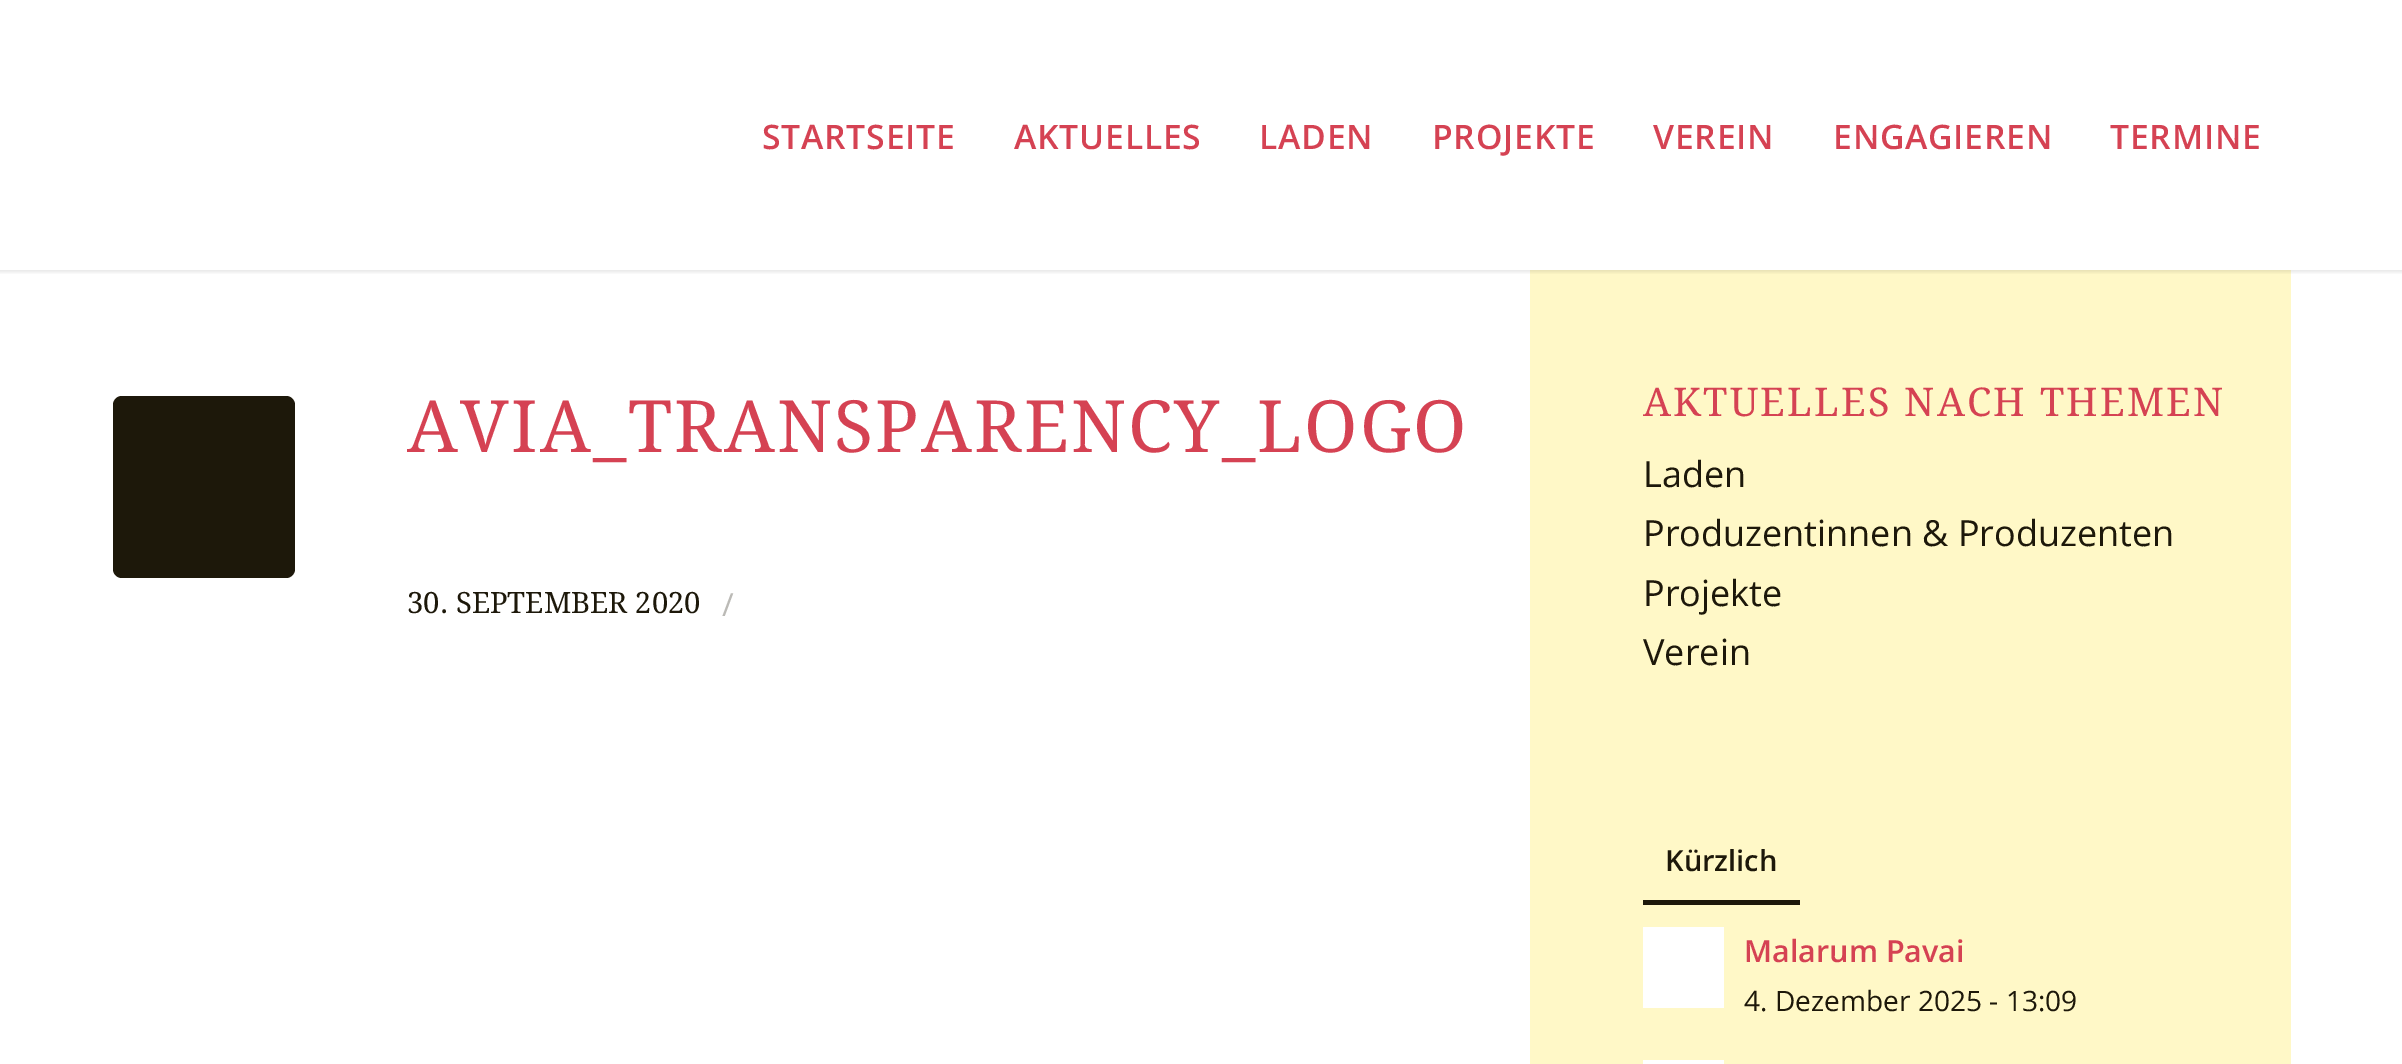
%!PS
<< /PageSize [2402 1064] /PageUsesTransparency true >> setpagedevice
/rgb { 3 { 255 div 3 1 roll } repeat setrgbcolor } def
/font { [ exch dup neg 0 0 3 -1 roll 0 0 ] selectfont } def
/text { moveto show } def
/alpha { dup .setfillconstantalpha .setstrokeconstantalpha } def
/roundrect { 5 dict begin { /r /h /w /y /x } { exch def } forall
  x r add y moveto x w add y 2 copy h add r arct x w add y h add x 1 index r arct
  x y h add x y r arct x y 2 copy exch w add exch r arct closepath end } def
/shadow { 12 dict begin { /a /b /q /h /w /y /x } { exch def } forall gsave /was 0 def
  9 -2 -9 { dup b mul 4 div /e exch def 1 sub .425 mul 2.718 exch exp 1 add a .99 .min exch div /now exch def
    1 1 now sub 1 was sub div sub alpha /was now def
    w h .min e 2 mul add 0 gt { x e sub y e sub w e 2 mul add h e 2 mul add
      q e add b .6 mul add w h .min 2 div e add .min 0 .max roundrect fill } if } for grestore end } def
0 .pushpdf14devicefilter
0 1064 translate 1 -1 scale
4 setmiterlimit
255 255 255 rgb
0 0 2402 1064 rectfill
255 248 199 rgb
1530 270 761 794 rectfill
gsave
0 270 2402 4 rectclip
0 0 0 rgb
-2 -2 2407 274 0 2 0.1 shadow
grestore
29 24 10 rgb
113 396 182 182 9 roundrect fill
1643 900 157 5 rectfill
255 255 255 rgb
1643 927 81 81 rectfill
1643 1060 81 4 rectfill
/OpenSans-SemiBold 33.75 font
213 66 83 rgb
762 149 moveto 0.75 0 (STARTSEITE) ashow
1014 149 moveto 0.75 0 (AKTUELLES) ashow
1259 149 moveto 0.75 0 (LADEN) ashow
1432 149 moveto 0.75 0 (PROJEKTE) ashow
1653 149 moveto 0.75 0 (VEREIN) ashow
1833 149 moveto 0.75 0 (ENGAGIEREN) ashow
2110 149 moveto 0.75 0 (TERMINE) ashow
/DroidSerif-Regular 72 font
407 452 moveto 2.25 0 (AVIA_TRANSPARENCY_LOGO) ashow
/DroidSerif-Regular 29.25 font
29 24 10 rgb
(30. SEPTEMBER 2020) 407 613 text
/OpenSans-Regular 32 font
187 186 182 rgb
(/) 722 616 text
/DroidSerif-Regular 39.6 font
213 66 83 rgb
1643 416 moveto 2.25 0 (AKTUELLES NACH THEMEN) ashow
/OpenSans-Regular 36 font
29 24 10 rgb
(Laden) 1643 487 text
(Produzentinnen & Produzenten) 1643 546 text
(Projekte) 1643 606 text
(Verein) 1643 665 text
/OpenSans-SemiBold 29 font
(Kürzlich) 1665 871 text
/OpenSans-SemiBold 30.5 font
213 66 83 rgb
(Malarum Pavai) 1744 962 text
/OpenSans-Regular 28.1 font
29 24 10 rgb
(4. Dezember 2025 - 13:09) 1744 1011 text
.poppdf14devicefilter showpage
